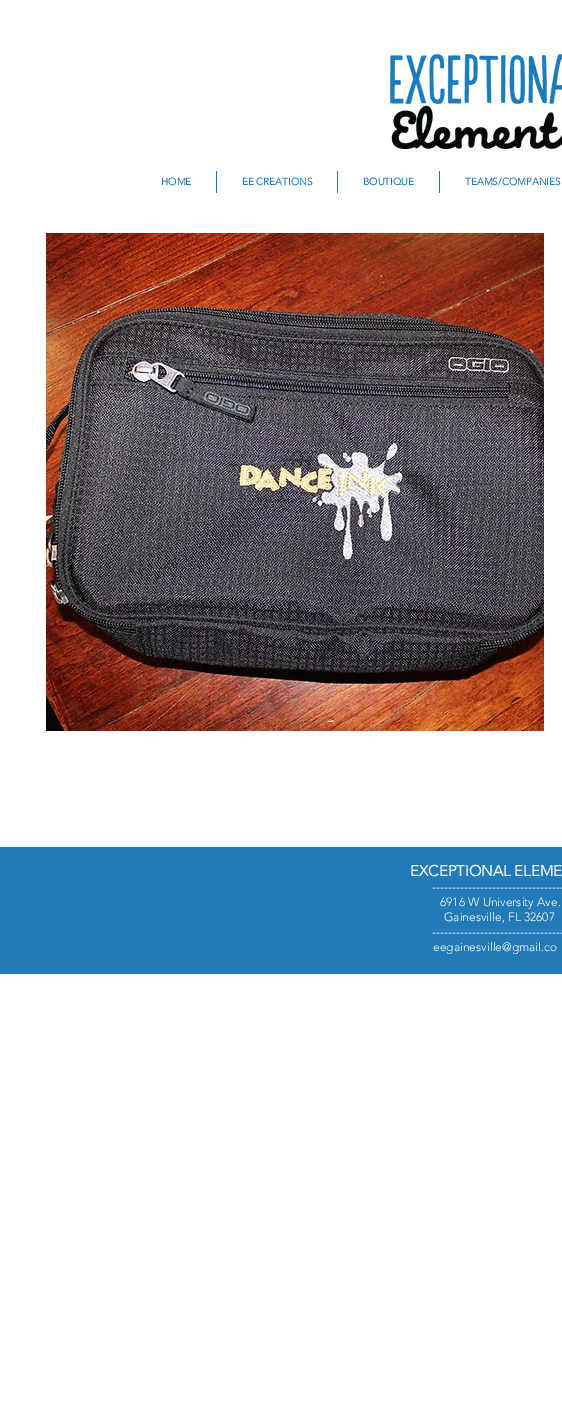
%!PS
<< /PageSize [562 1427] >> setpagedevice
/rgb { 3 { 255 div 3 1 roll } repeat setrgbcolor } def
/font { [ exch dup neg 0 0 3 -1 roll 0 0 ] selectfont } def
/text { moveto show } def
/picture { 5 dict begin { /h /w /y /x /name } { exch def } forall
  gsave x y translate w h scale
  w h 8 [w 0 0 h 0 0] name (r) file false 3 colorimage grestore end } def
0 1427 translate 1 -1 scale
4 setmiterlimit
255 255 255 rgb
0 0 562 1427 rectfill
(img_01.rgb) 390 54 172 95 picture
32 123 184 rgb
216 171 1 22 rectfill
337 171 1 22 rectfill
439 171 1 22 rectfill
(img_02.rgb) 46 233 498 498 picture
0 847 562 127 rectfill
/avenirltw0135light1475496-Bold 10 font
(HOME) 161 185 text
(EE CREATIONS) 242 185 text
(BOUTIQUE) 363 185 text
(TEAMS/COMPANIES) 465 185 text
/avenirltw0135light1475496-Bold 15 font
255 255 255 rgb
(EXCEPTIONAL ELEME) 410 876 text
/avenirltw0135light1475496-Light 12 font
(---------------------------------) 432 891 text
(6916 W University Ave.) 440 906 text
(Gainesville, FL 32607) 444 921 text
(---------------------------------) 432 936 text
(eegainesville@gmail.co) 433 951 text
showpage
